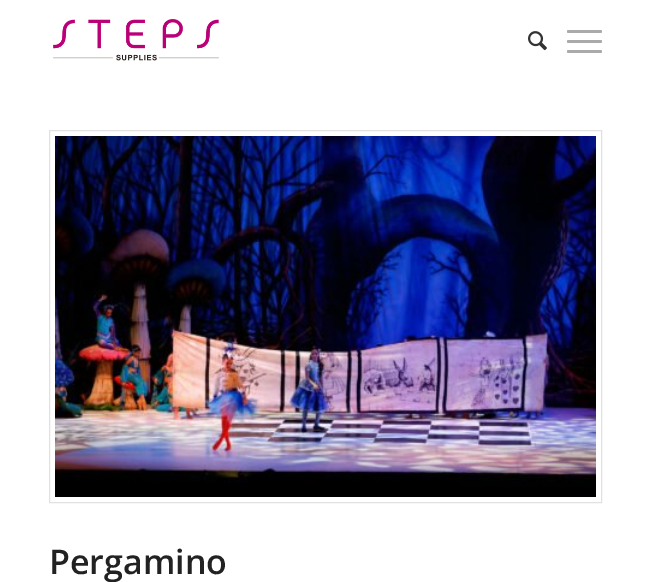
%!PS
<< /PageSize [651 582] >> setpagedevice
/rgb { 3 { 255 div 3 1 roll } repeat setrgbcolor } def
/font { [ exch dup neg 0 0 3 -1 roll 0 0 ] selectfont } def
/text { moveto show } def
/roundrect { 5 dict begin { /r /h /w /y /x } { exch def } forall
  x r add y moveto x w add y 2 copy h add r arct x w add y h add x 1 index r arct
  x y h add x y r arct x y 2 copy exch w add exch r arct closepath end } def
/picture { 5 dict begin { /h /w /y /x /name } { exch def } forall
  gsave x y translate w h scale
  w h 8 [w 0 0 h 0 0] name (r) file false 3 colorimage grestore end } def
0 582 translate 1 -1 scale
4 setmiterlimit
255 255 255 rgb
0 0 651 582 rectfill
(img_01.rgb) 53 19 166 42 picture
(img_02.rgb) 528 31 19 20 picture
170 170 170 rgb
567 40 35 3 1.5 roundrect fill
567 30 35 3 1.5 roundrect fill
567 50 35 3 1.5 roundrect fill
225 225 225 rgb
49.5 130.5 552 372 rectstroke
(img_03.rgb) 55 136 541 361 picture
/OpenSans-SemiBold 34 font
34 34 34 rgb
(Pergamino) 49 574 text
showpage
